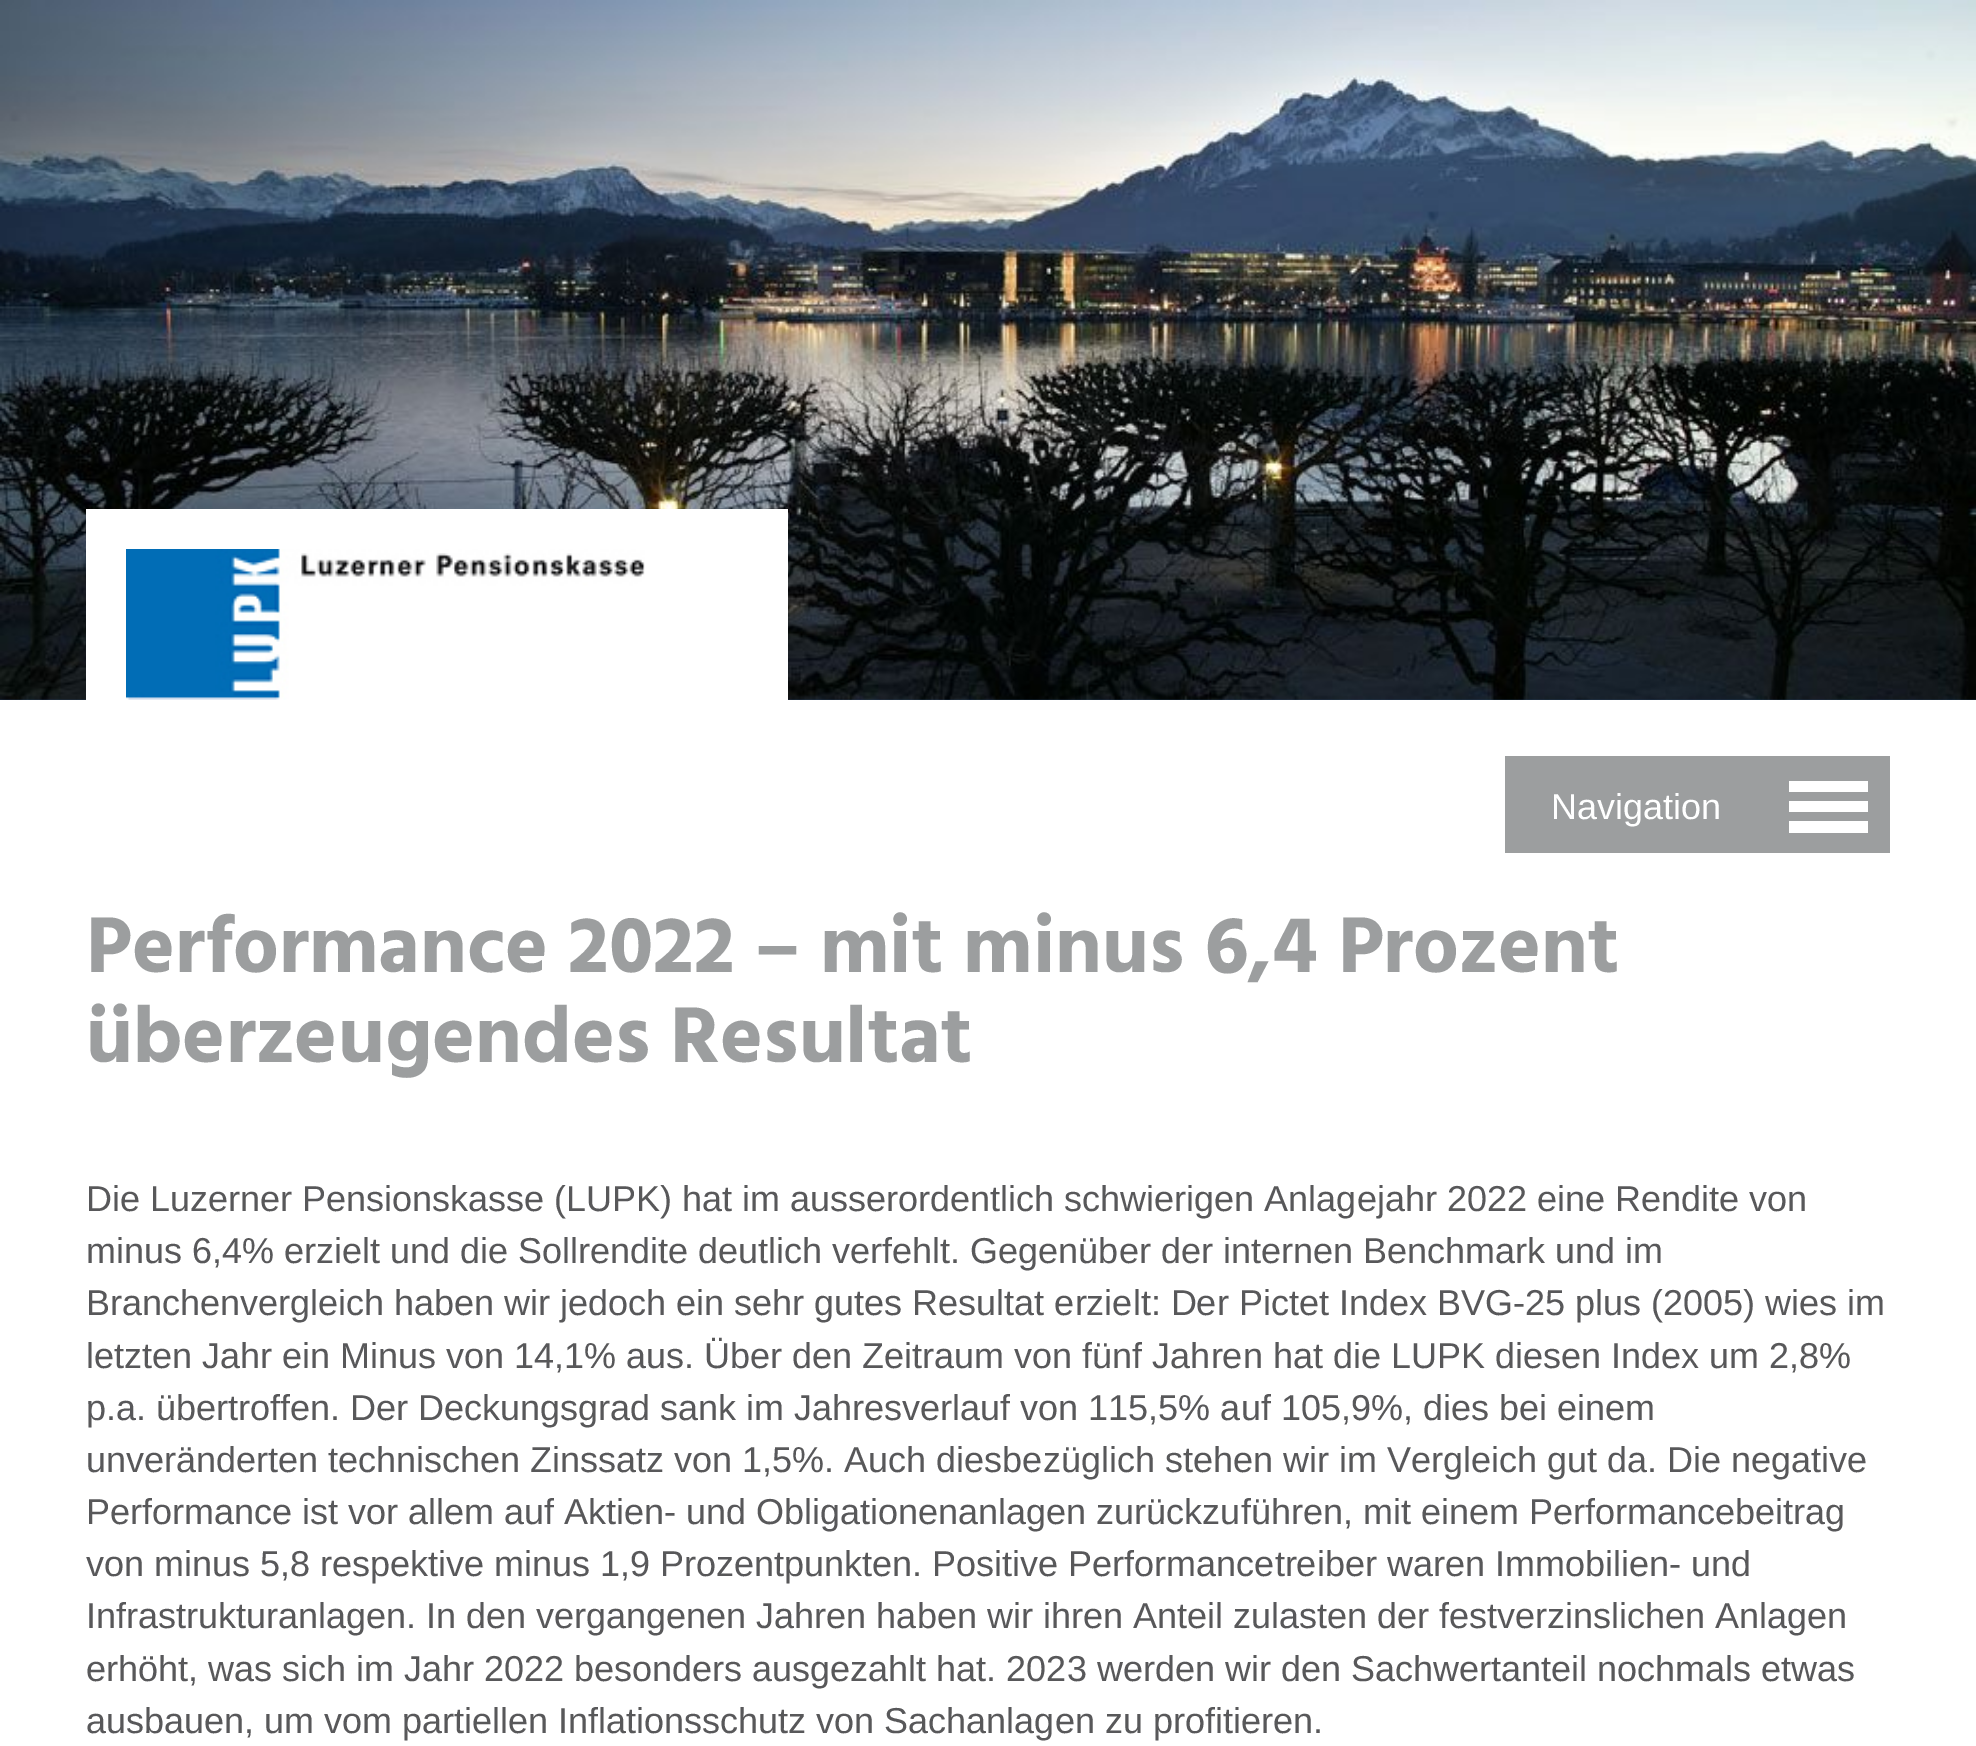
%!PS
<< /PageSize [1976 1746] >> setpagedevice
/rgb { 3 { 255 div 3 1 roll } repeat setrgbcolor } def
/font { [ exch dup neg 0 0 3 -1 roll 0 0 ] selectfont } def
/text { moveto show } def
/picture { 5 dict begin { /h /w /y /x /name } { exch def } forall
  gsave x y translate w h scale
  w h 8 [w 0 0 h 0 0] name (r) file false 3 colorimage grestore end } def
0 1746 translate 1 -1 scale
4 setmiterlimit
255 255 255 rgb
0 0 1976 1746 rectfill
(img_01.rgb) 0 0 1976 700 picture
86 509 702 191 rectfill
(img_02.rgb) 126 549 519 151 picture
156 158 159 rgb
1505 756 385 97 rectfill
255 255 255 rgb
1789 781 79 11 rectfill
1789 801 79 11 rectfill
1789 821 79 12 rectfill
/LiberationSans-Regular 36 font
(Navigation) 1551 819 text
/Hind-Bold 81 font
156 158 159 rgb
(Performance 2022 – mit minus 6,4 Prozent) 86 972 text
(überzeugendes Resultat) 86 1062 text
/LiberationSans-Regular 36 font
88 88 90 rgb
(Die Luzerner Pensionskasse \(LUPK\) hat im ausserordentlich schwierigen Anlagejahr 2022 eine Rendite von) 86 1211 text
(minus 6,4% erzielt und die Sollrendite deutlich verfehlt. Gegenüber der internen Benchmark und im) 86 1263 text
(Branchenvergleich haben wir jedoch ein sehr gutes Resultat erzielt: Der Pictet Index BVG-25 plus \(2005\) wies im) 86 1315 text
(letzten Jahr ein Minus von 14,1% aus. Über den Zeitraum von fünf Jahren hat die LUPK diesen Index um 2,8%) 86 1368 text
(p.a. übertroffen. Der Deckungsgrad sank im Jahresverlauf von 115,5% auf 105,9%, dies bei einem) 86 1420 text
(unveränderten technischen Zinssatz von 1,5%. Auch diesbezüglich stehen wir im Vergleich gut da. Die negative) 86 1472 text
(Performance ist vor allem auf Aktien- und Obligationenanlagen zurückzuführen, mit einem Performancebeitrag) 86 1524 text
(von minus 5,8 respektive minus 1,9 Prozentpunkten. Positive Performancetreiber waren Immobilien- und) 86 1576 text
(Infrastrukturanlagen. In den vergangenen Jahren haben wir ihren Anteil zulasten der festverzinslichen Anlagen) 86 1628 text
(erhöht, was sich im Jahr 2022 besonders ausgezahlt hat. 2023 werden wir den Sachwertanteil nochmals etwas) 86 1681 text
(ausbauen, um vom partiellen Inflationsschutz von Sachanlagen zu profitieren.) 86 1733 text
showpage
